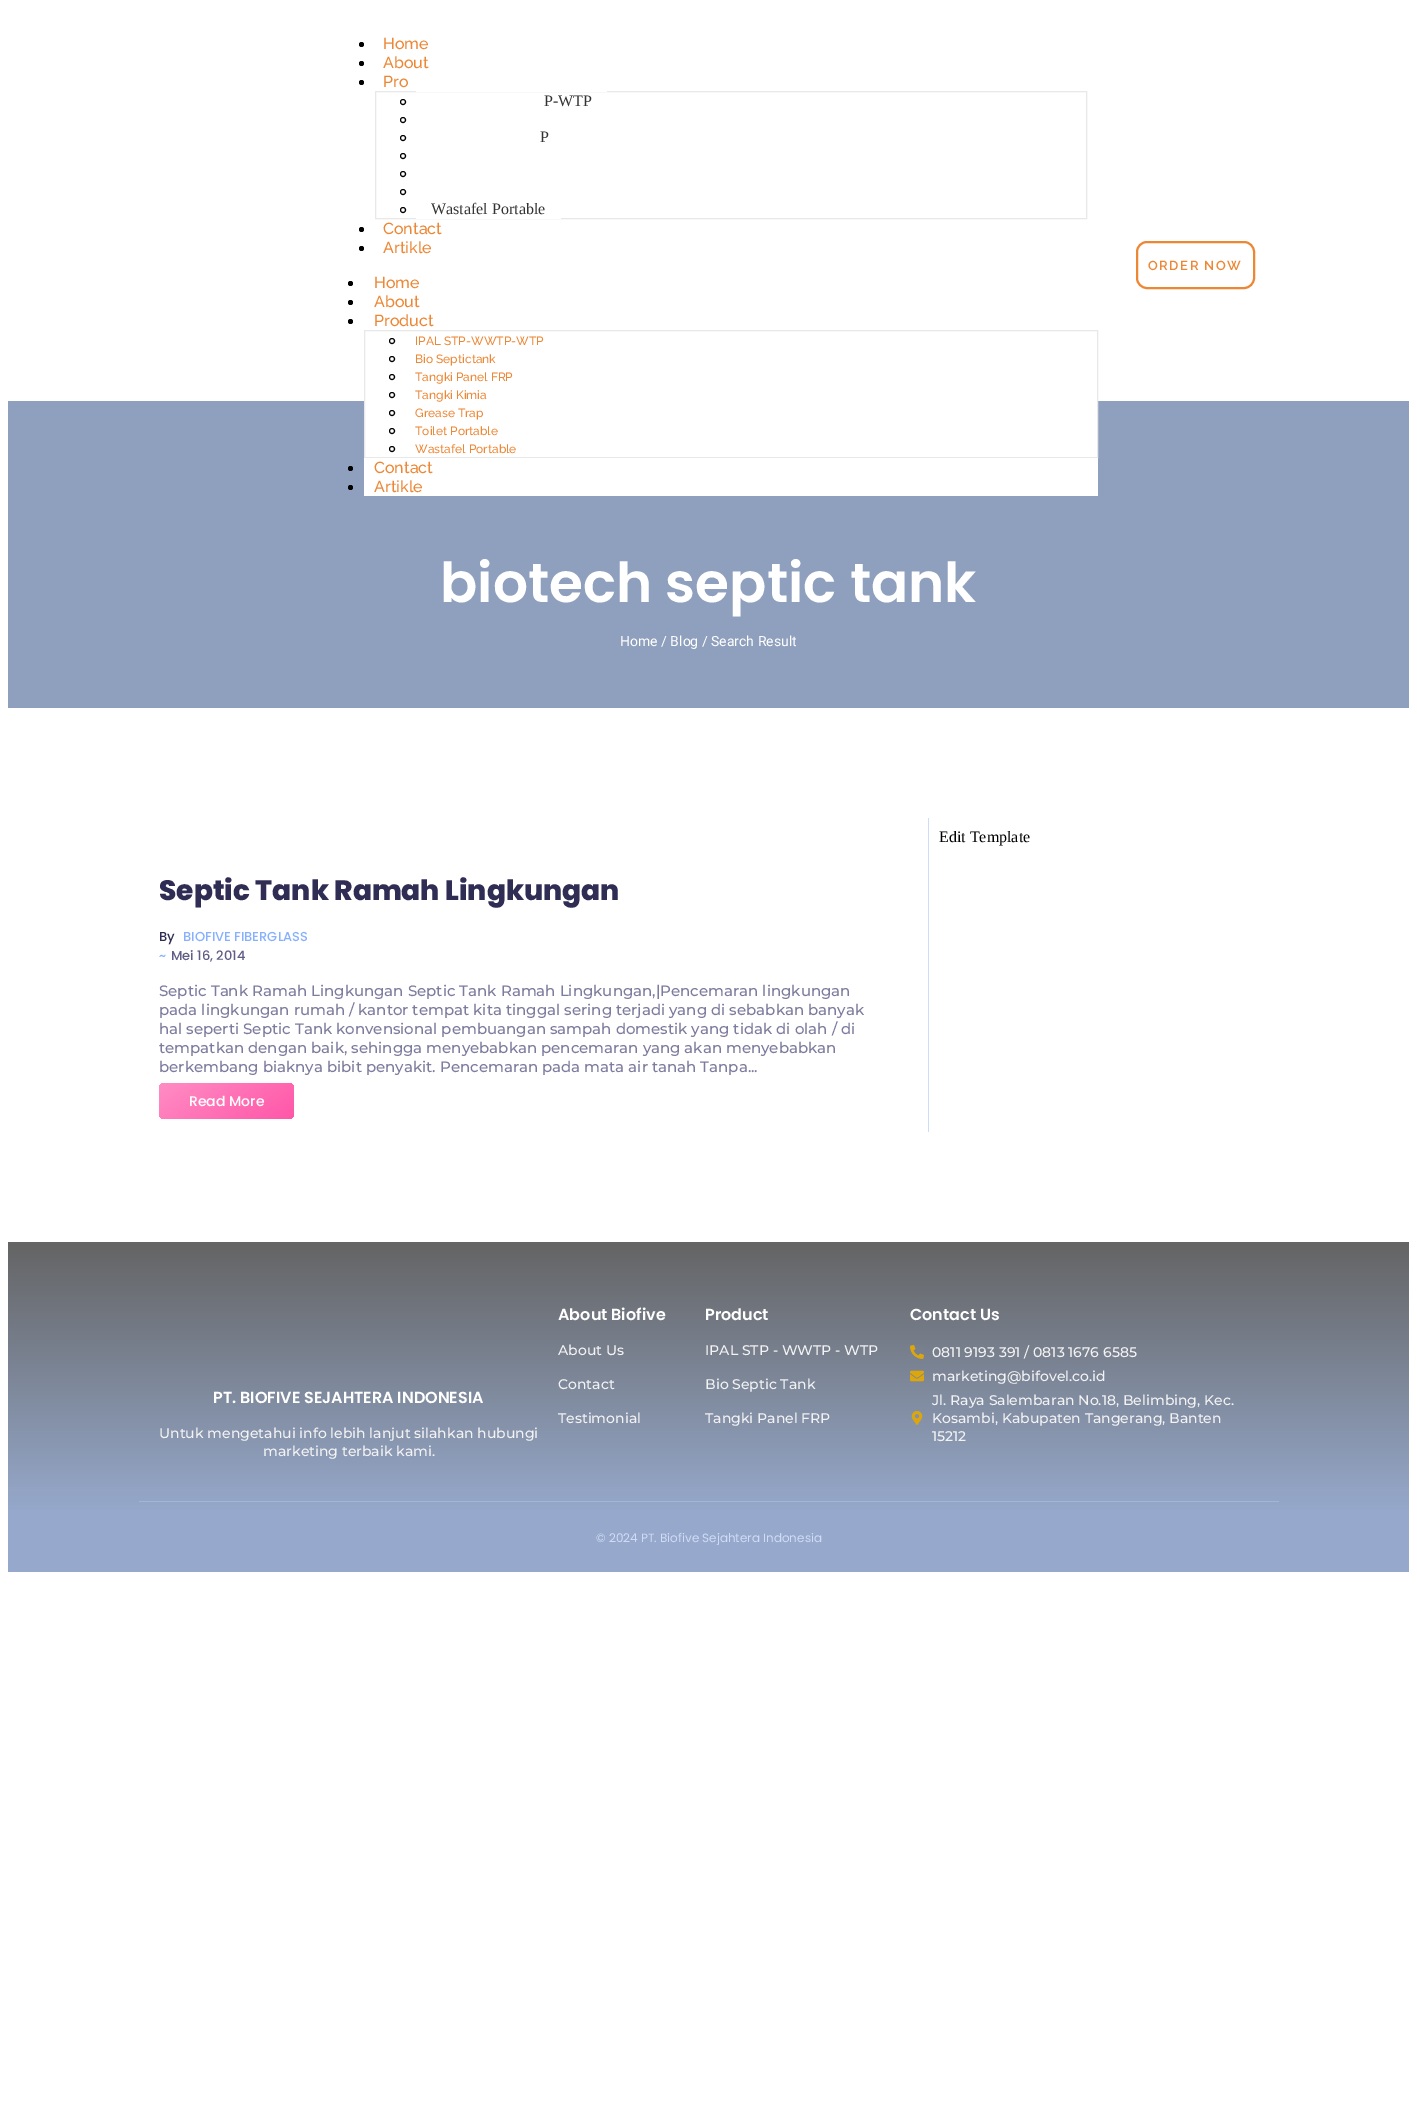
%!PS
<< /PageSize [1417 2103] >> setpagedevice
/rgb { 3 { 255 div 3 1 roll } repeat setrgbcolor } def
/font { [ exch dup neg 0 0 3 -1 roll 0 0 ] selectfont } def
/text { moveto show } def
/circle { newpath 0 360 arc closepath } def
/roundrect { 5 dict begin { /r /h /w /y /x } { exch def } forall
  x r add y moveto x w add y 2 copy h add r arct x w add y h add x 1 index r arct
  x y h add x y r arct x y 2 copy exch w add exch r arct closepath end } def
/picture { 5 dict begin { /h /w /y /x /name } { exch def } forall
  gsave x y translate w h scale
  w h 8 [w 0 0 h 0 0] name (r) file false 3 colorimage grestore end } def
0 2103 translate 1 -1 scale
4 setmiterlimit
255 255 255 rgb
0 0 1417 2103 rectfill
0 0 0 rgb
361.5 44.5 2.5 circle fill
361.5 63.5 2.5 circle fill
361.5 82.5 2.5 circle fill
232 232 232 rgb
375.5 91.5 711 127 rectstroke
0 0 0 rgb
403 102 2.5 circle stroke
255 255 255 rgb
416 91 191 1 rectfill
0 0 0 rgb
403 120 2.5 circle stroke
403 138 2.5 circle stroke
403 156 2.5 circle stroke
403 174 2.5 circle stroke
403 192 2.5 circle stroke
403 210 2.5 circle stroke
255 255 255 rgb
416 218 145 1 rectfill
0 0 0 rgb
361.5 229.5 2.5 circle fill
361.5 248.5 2.5 circle fill
350.5 283.5 2.5 circle fill
350.5 302.5 2.5 circle fill
143 160 190 rgb
8 401 1401 307 rectfill
255 255 255 rgb
364 401 734 56 rectfill
0 0 0 rgb
350.5 321.5 2.5 circle fill
232 232 232 rgb
364.5 330.5 733 127 rectstroke
0 0 0 rgb
392 341 2.5 circle stroke
392 359 2.5 circle stroke
392 377 2.5 circle stroke
392 395 2.5 circle stroke
392 413 2.5 circle stroke
392 431 2.5 circle stroke
392 449 2.5 circle stroke
255 255 255 rgb
364 458 734 38 rectfill
0 0 0 rgb
350.5 468.5 2.5 circle fill
350.5 487.5 2.5 circle fill
236 135 52 rgb
2 setlinewidth
1137 242 117 46 10 roundrect stroke
205 220 247 rgb
928 818 1 314 rectfill
gsave 159 1083 135 36 6 roundrect clip newpath
<< /ShadingType 2 /ColorSpace /DeviceRGB /Coords [196 1057 257 1145] /Extend [true true] /Function << /FunctionType 2 /Domain [0 1] /C0 [1 0.553 0.769] /C1 [1 0.337 0.659] /N 1 >> >> shfill grestore
gsave 8 1242 moveto 1401 0 rlineto 0 330 rlineto -1401 0 rlineto closepath clip newpath
<< /ShadingType 2 /ColorSpace /DeviceRGB /Coords [709 1242 709 1572] /Extend [true true] /Function << /FunctionType 3 /Domain [0 1] /Functions [<< /FunctionType 2 /Domain [0 1] /C0 [0.392 0.392 0.392] /C1 [0.588 0.663 0.8] /N 1 >> << /FunctionType 2 /Domain [0 1] /C0 [0.588 0.663 0.8] /C1 [0.588 0.663 0.8] /N 1 >>] /Bounds [0.82] /Encode [0 1 0 1] >> >> shfill grestore
(img_01.rgb) 910 1345 14 14 picture
(img_02.rgb) 910 1370 14 12 picture
(img_03.rgb) 911 1411 12 14 picture
163 181 216 rgb
139 1501 1140 1 rectfill
/Raleway-Medium 16 font
236 135 52 rgb
(Home) 383 49 text
(About) 383 68 text
(Pro) 383 87 text
/LiberationSerif-Regular 16 font
51 51 51 rgb
(P-WTP) 544 106 text
(P) 540 142 text
(Wastafel Portable) 431 214 text
/Raleway-Medium 16 font
236 135 52 rgb
(Contact) 383 234 text
(Artikle) 383 253 text
(Home) 374 288 text
(About) 374 307 text
(Product) 374 326 text
/Raleway-Medium 12 font
(IPAL STP-WWTP-WTP) 415 345 text
(Bio Septictank) 415 363 text
(Tangki Panel FRP) 415 381 text
(Tangki Kimia) 415 399 text
(Grease Trap) 415 417 text
(Toilet Portable) 415 435 text
(Wastafel Portable) 415 453 text
/Raleway-Medium 16 font
(Contact) 374 473 text
(Artikle) 374 492 text
/Raleway-SemiBold 13 font
1148 270 moveto 1.5 0 (ORDER NOW) ashow
/Poppins-SemiBold 55 font
255 255 255 rgb
(biotech septic tank) 440 602 text
/Roboto-Regular 14 font
(Home / Blog / Search Result) 620 646 text
/LiberationSerif-Regular 16 font
0 0 0 rgb
(Edit Template) 939 842 text
/Poppins-ExtraBold 28 font
48 45 85 rgb
(Septic Tank Ramah Lingkungan) 159 900 text
/Poppins-Medium 13 font
(By) 159 941 text
135 177 255 rgb
(BIOFIVE FIBERGLASS) 183 941 text
(~) 159 960 text
96 93 134 rgb
(Mei 16, 2014) 171 960 text
/Montserrat-Medium 15 font
125 123 158 rgb
(Septic Tank Ramah Lingkungan Septic Tank Ramah Lingkungan,|Pencemaran lingkungan) 159 996 text
(pada lingkungan rumah / kantor tempat kita tinggal sering terjadi yang di sebabkan banyak) 159 1015 text
(hal seperti Septic Tank konvensional pembuangan sampah domestik yang tidak di olah / di) 159 1034 text
(tempatkan dengan baik, sehingga menyebabkan pencemaran yang akan menyebabkan) 159 1053 text
(berkembang biaknya bibit penyakit. Pencemaran pada mata air tanah Tanpa...) 159 1072 text
/Poppins-Medium 14 font
255 255 255 rgb
(Read More) 189 1106 text
/Poppins-SemiBold 16 font
(PT. BIOFIVE SEJAHTERA INDONESIA) 213 1403 text
/Montserrat-Medium 14 font
243 243 243 rgb
(Untuk mengetahui info lebih lanjut silahkan hubungi) 159 1438 text
(marketing terbaik kami.) 263 1456 text
/Poppins-SemiBold 16 font
255 255 255 rgb
(About Biofive) 558 1320 text
/Montserrat-Medium 14 font
243 243 243 rgb
(About Us) 558 1355 text
(Contact) 558 1389 text
(Testimonial) 558 1423 text
/Poppins-SemiBold 16 font
255 255 255 rgb
(Product) 705 1320 text
/Montserrat-Medium 14 font
243 243 243 rgb
(IPAL STP - WWTP - WTP) 705 1355 text
(Bio Septic Tank) 705 1389 text
(Tangki Panel FRP) 705 1423 text
/Poppins-SemiBold 16 font
255 255 255 rgb
(Contact Us) 910 1320 text
/Montserrat-Medium 14 font
243 243 243 rgb
(0811 9193 391 / 0813 1676 6585) 932 1357 text
(marketing@bifovel.co.id) 932 1381 text
(Jl. Raya Salembaran No.18, Belimbing, Kec.) 932 1405 text
(Kosambi, Kabupaten Tangerang, Banten) 932 1423 text
(15212) 932 1441 text
/Poppins-Regular 12 font
208 220 245 rgb
(© 2024 PT. Biofive Sejahtera Indonesia) 596 1542 text
showpage
